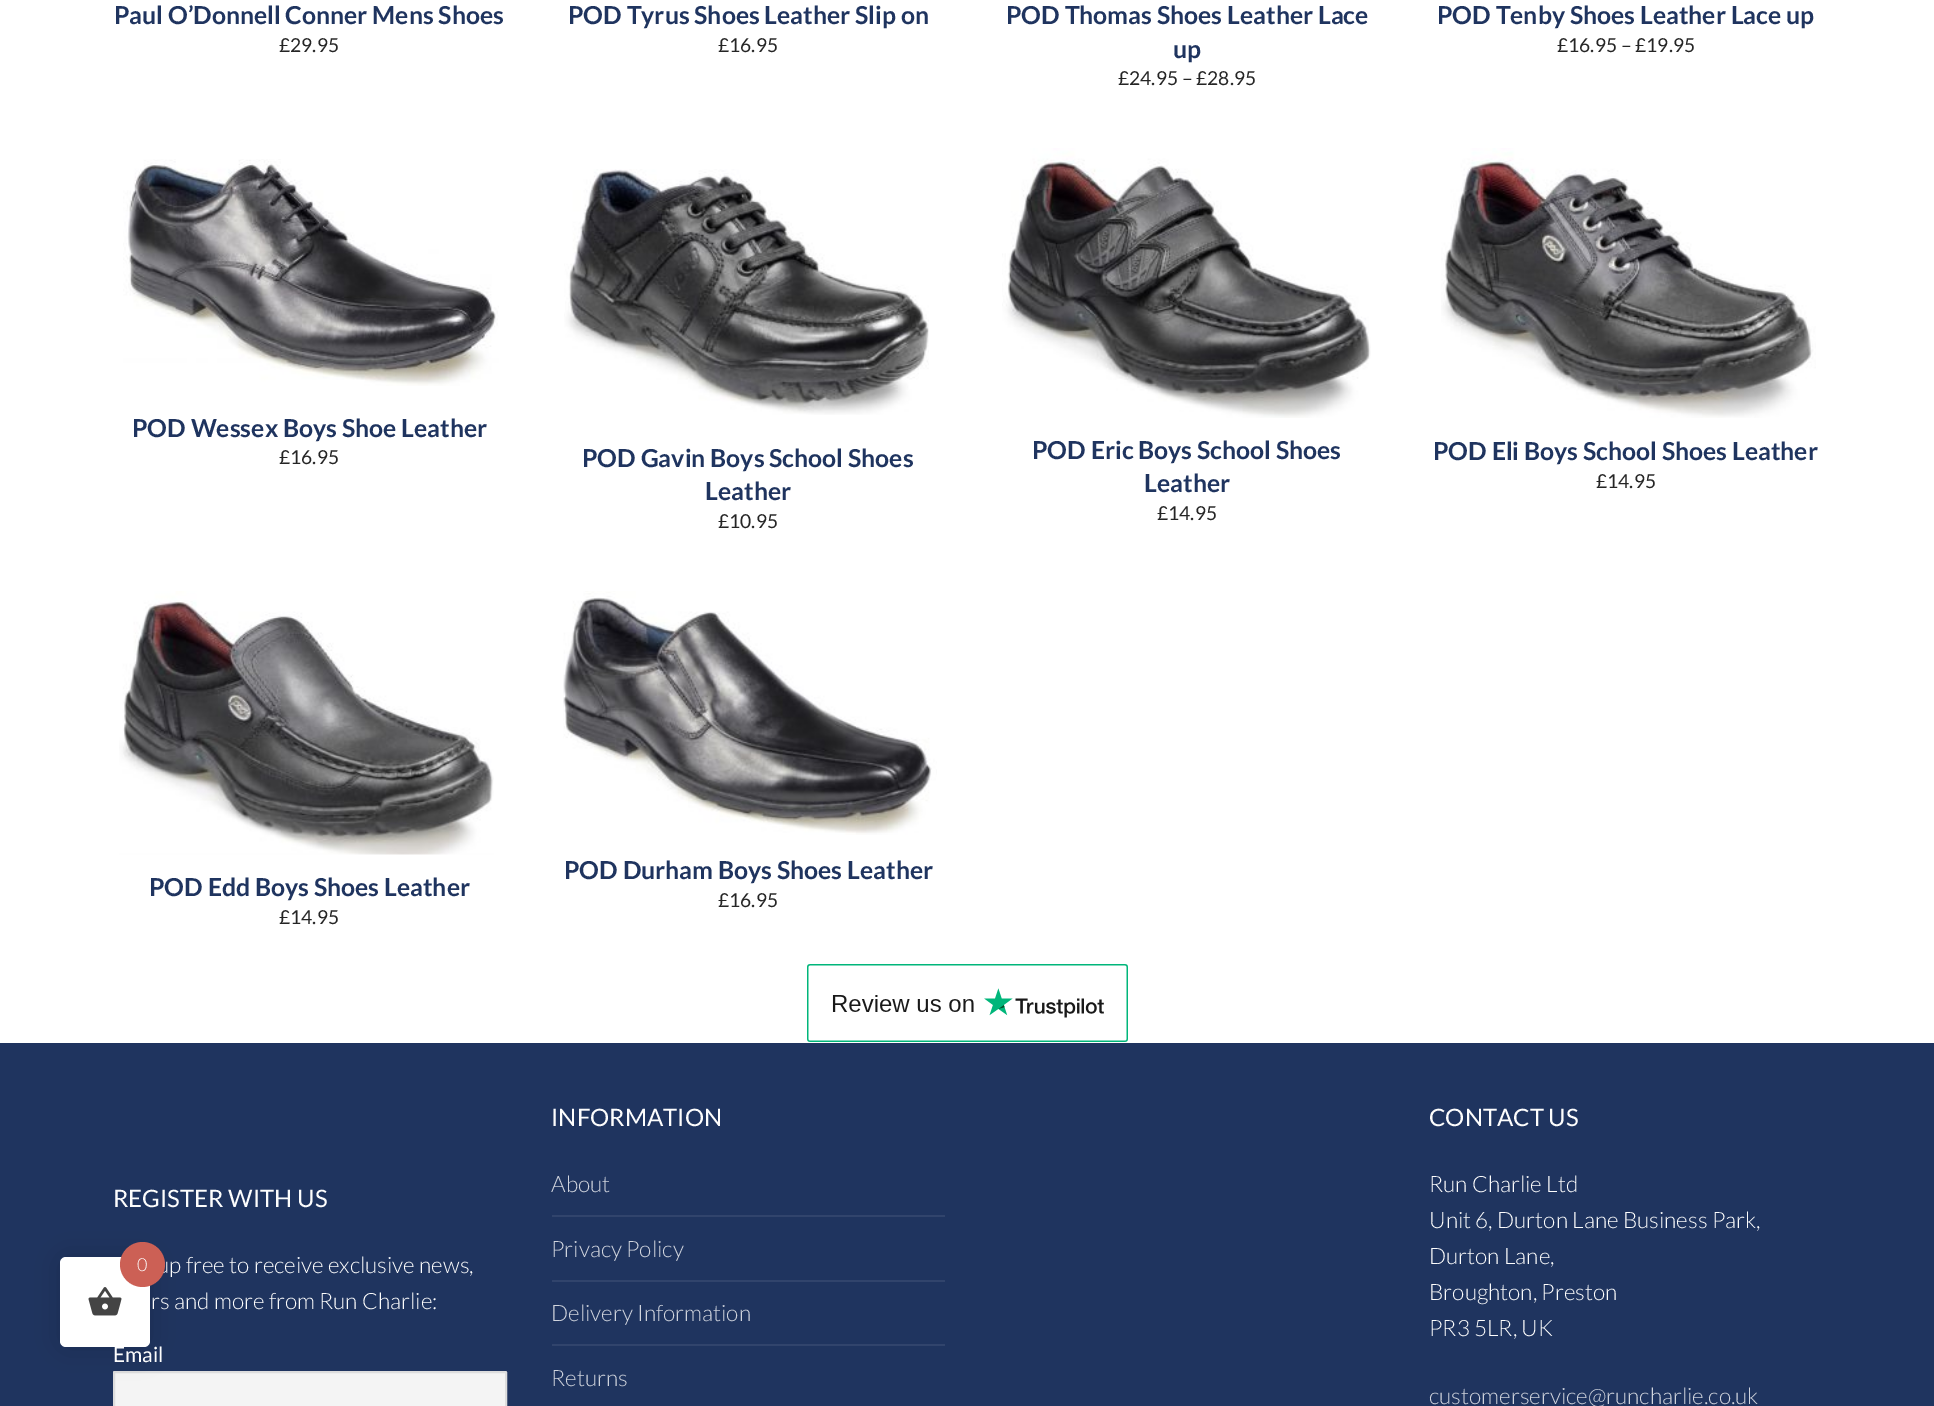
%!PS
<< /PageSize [1934 1406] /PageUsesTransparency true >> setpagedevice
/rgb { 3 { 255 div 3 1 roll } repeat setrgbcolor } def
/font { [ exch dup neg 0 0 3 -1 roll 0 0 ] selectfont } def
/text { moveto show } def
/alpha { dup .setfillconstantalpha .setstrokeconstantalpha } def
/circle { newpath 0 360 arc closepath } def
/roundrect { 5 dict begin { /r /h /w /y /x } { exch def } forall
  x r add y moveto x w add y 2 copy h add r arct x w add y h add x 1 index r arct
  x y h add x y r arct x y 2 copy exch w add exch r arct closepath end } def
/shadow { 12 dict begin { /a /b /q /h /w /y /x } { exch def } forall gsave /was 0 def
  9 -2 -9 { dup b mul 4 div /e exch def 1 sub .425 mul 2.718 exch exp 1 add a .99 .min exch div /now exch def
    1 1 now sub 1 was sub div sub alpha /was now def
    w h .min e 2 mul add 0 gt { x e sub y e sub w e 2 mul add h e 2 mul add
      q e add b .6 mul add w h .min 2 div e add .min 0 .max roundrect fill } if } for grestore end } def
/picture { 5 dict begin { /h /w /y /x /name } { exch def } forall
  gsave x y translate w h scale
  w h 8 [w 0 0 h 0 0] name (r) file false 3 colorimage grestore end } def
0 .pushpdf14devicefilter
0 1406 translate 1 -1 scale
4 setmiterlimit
255 255 255 rgb
0 0 1934 1406 rectfill
(img_01.rgb) 123 159 376 227 picture
(img_02.rgb) 564 169 365 246 picture
(img_03.rgb) 1002 148 369 270 picture
(img_04.rgb) 1441 148 375 270 picture
(img_05.rgb) 119 591 375 264 picture
(img_06.rgb) 563 591 374 244 picture
(img_07.rgb) 807 964 321 78 picture
31 52 95 rgb
0 1043 1934 363 rectfill
244 244 244 rgb
114 1372 392 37 0.5 roundrect gsave fill grestore
221 221 221 rgb
2 setlinewidth
stroke
49 68 108 rgb
552 1215 393 2 rectfill
552 1280 393 2 rectfill
552 1344 393 2 rectfill
0 0 0 rgb
60 1257 90 90 6 15 0.15 shadow
/Lato-Bold 24.75 font
31 52 95 rgb
(Paul O’Donnell Conner Mens Shoes) 114 24 text
/Lato-Regular 19.25 font
37 37 37 rgb
(£29.95) 279 52 text
/Lato-Bold 24.75 font
31 52 95 rgb
(POD Tyrus Shoes Leather Slip on) 568 24 text
/Lato-Regular 19.25 font
37 37 37 rgb
(£16.95) 718 52 text
/Lato-Bold 24.75 font
31 52 95 rgb
(POD Thomas Shoes Leather Lace) 1006 24 text
(up) 1173 58 text
/Lato-Regular 19.25 font
37 37 37 rgb
(£24.95 – £28.95) 1118 85 text
/Lato-Bold 24.75 font
31 52 95 rgb
(POD Tenby Shoes Leather Lace up) 1437 24 text
/Lato-Regular 19.25 font
37 37 37 rgb
(£16.95 – £19.95) 1557 52 text
/Lato-Bold 24.75 font
31 52 95 rgb
(POD Wessex Boys Shoe Leather) 132 437 text
/Lato-Regular 19.25 font
37 37 37 rgb
(£16.95) 279 464 text
/Lato-Bold 24.75 font
31 52 95 rgb
(POD Gavin Boys School Shoes) 582 467 text
(Leather) 705 500 text
/Lato-Regular 19.25 font
37 37 37 rgb
(£10.95) 718 528 text
/Lato-Bold 24.75 font
31 52 95 rgb
(POD Eric Boys School Shoes) 1032 459 text
(Leather) 1144 492 text
/Lato-Regular 19.25 font
37 37 37 rgb
(£14.95) 1157 520 text
/Lato-Bold 24.75 font
31 52 95 rgb
(POD Eli Boys School Shoes Leather) 1433 460 text
/Lato-Regular 19.25 font
37 37 37 rgb
(£14.95) 1596 488 text
/Lato-Bold 24.75 font
31 52 95 rgb
(POD Edd Boys Shoes Leather) 149 896 text
/Lato-Regular 19.25 font
37 37 37 rgb
(£14.95) 279 924 text
/Lato-Bold 24.75 font
31 52 95 rgb
(POD Durham Boys Shoes Leather) 564 879 text
/Lato-Regular 19.25 font
37 37 37 rgb
(£16.95) 718 907 text
/Lato-Regular 24 font
253 253 253 rgb
(REGISTER WITH US) 113 1207 text
/Lato-Light 22.5 font
(up free to receive exclusive news,) 157 1273 text
(rs and more from Run Charlie:) 151 1309 text
/Lato-Regular 21 font
(Email) 113 1362 text
/Lato-Regular 24 font
(INFORMATION) 551 1126 text
/Lato-Light 22.5 font
208 212 221 rgb
(About) 551 1192 text
(Privacy Policy) 551 1257 text
(Delivery Information) 551 1321 text
(Returns) 551 1386 text
/Lato-Regular 24 font
253 253 253 rgb
(CONTACT US) 1429 1126 text
/Lato-Light 22.5 font
(Run Charlie Ltd) 1429 1192 text
(Unit 6, Durton Lane Business Park,) 1429 1228 text
(Durton Lane,) 1429 1264 text
(Broughton, Preston) 1429 1300 text
(PR3 5LR, UK) 1429 1336 text
208 212 221 rgb
(customerservice@runcharlie.co.uk) 1429 1404 text
255 255 255 rgb
60 1257 90 90 6 roundrect fill
204 96 85 rgb
142.5 1264.5 22.5 circle fill
/Lato-Light 18 font
253 253 253 rgb
(0) 137 1271 text
(img_08.rgb) 88 1287 34 29 picture
.poppdf14devicefilter showpage
